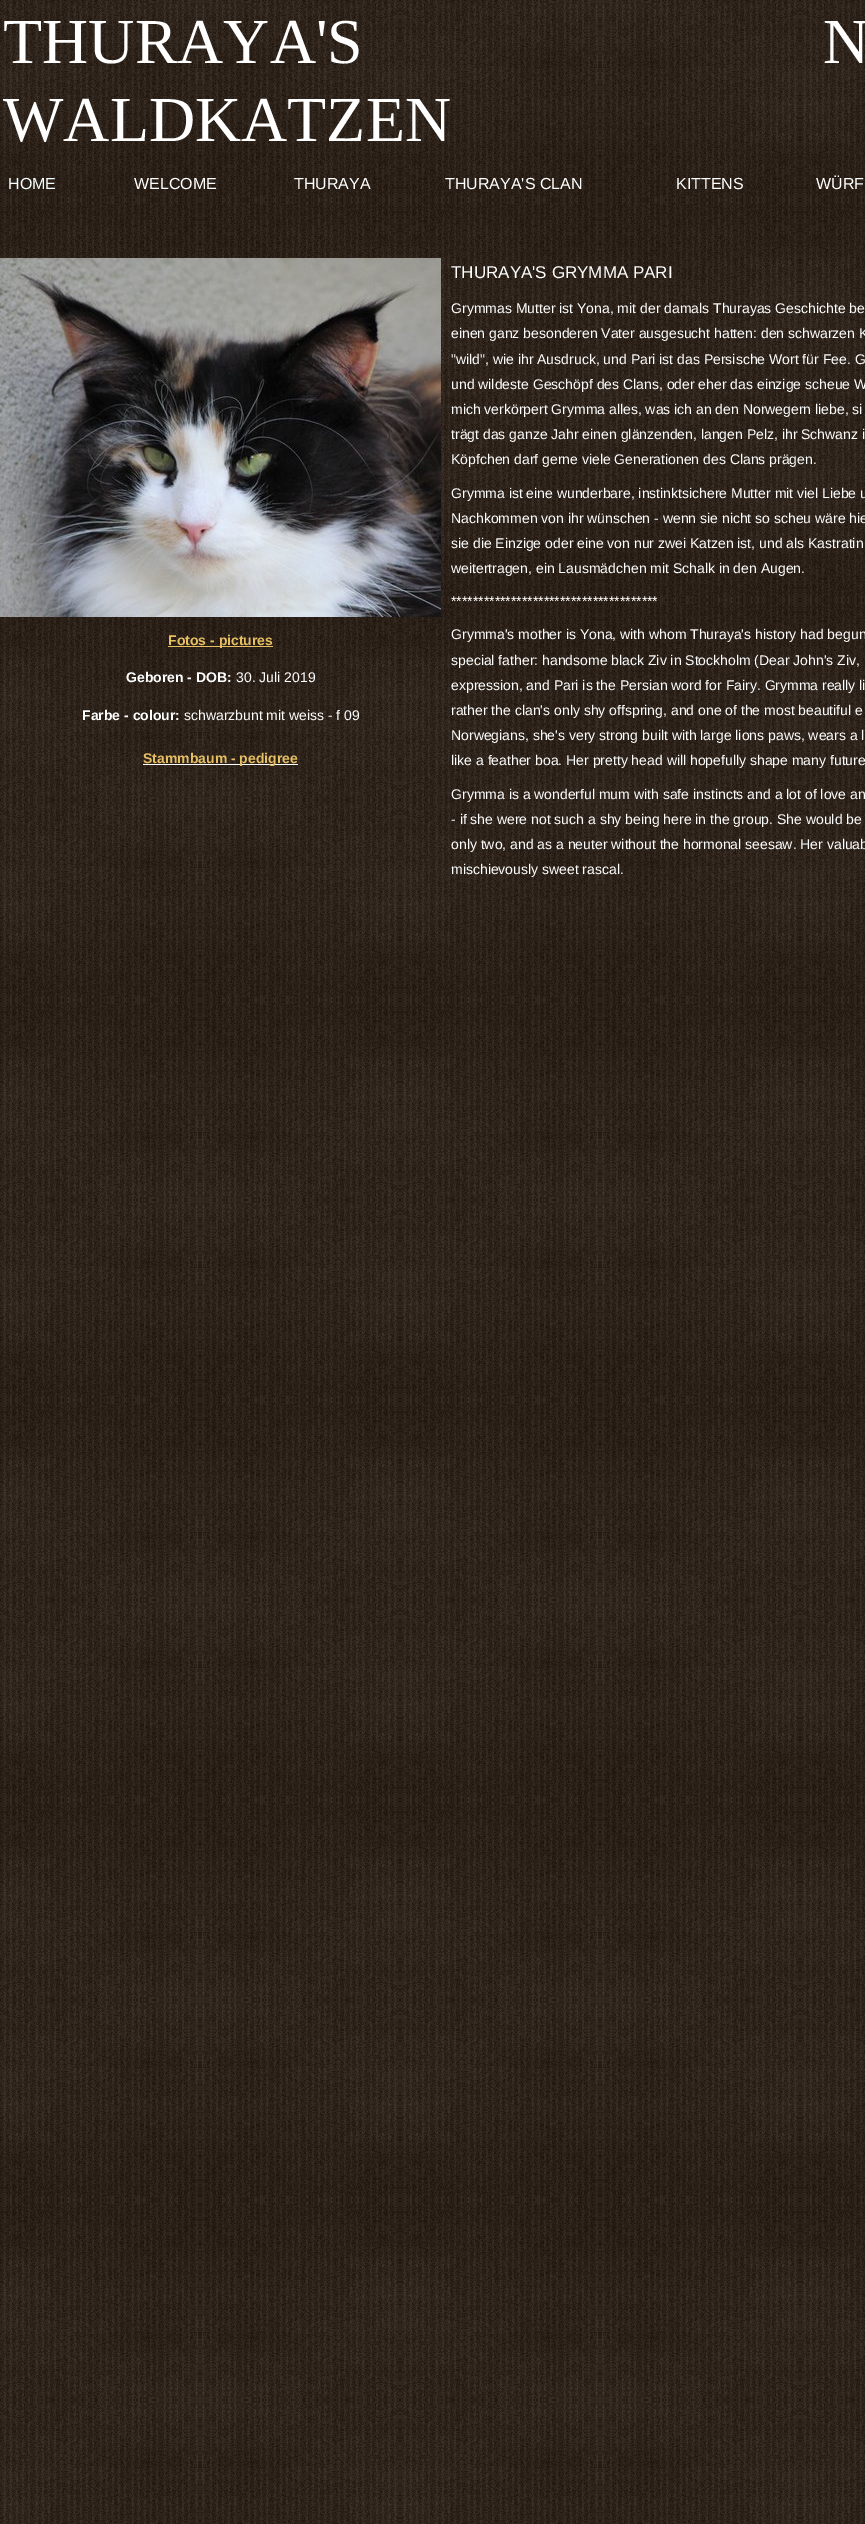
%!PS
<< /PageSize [865 2524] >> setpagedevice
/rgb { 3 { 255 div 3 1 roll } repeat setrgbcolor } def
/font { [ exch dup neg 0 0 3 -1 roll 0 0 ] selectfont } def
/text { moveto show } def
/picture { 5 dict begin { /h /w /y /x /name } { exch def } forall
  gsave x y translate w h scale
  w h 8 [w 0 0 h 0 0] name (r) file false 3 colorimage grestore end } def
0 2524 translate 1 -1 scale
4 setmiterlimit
255 255 255 rgb
0 0 865 2524 rectfill
(img_01.rgb) 0 0 865 2524 picture
(img_02.rgb) 0 258 441 359 picture
231 192 99 rgb
168 646 105 1 rectfill
255 255 255 rgb
143 764 155 1 rectfill
/LiberationSerif-Regular 64 font
(THURAYA'S) 3 63 text
(N) 823 63 text
(WALDKATZEN) 3 141 text
/LiberationSans-Regular 16 font
245 255 255 rgb
(HOME) 8 189 text
255 255 255 rgb
(WELCOME) 134 189 text
(THURAYA) 294 189 text
(THURAYA'S CLAN) 445 189 text
(KITTENS) 676 189 text
(WÜRF) 816 189 text
/LiberationSans-Bold 14 font
231 192 99 rgb
(Fotos - pictures) 168 645 text
255 255 255 rgb
(Geboren - DOB:) 126 682 text
/LiberationSans-Regular 14 font
(30. Juli 2019) 236 682 text
/LiberationSans-Bold 14 font
(Farbe - colour:) 82 720 text
/LiberationSans-Regular 14 font
(schwarzbunt mit weiss - f 09) 184 720 text
/LiberationSans-Bold 14 font
231 192 99 rgb
(Stammbaum - pedigree) 143 763 text
/LiberationSans-Regular 17 font
255 255 255 rgb
(THURAYA'S GRYMMA PARI) 451 278 text
/LiberationSans-Regular 14 font
(Grymmas Mutter ist Yona, mit der damals Thurayas Geschichte be) 451 313 text
(einen ganz besonderen Vater ausgesucht hatten: den schwarzen K) 451 338 text
("wild", wie ihr Ausdruck, und Pari ist das Persische Wort für Fee. G) 451 364 text
(und wildeste Geschöpf des Clans, oder eher das einzige scheue W) 451 389 text
(mich verkörpert Grymma alles, was ich an den Norwegern liebe, si) 451 414 text
(trägt das ganze Jahr einen glänzenden, langen Pelz, ihr Schwanz i) 451 439 text
(Köpfchen darf gerne viele Generationen des Clans prägen.) 451 464 text
(Grymma ist eine wunderbare, instinktsichere Mutter mit viel Liebe u) 451 498 text
(Nachkommen von ihr wünschen - wenn sie nicht so scheu wäre hie) 451 523 text
(sie die Einzige oder eine von nur zwei Katzen ist, und als Kastratin) 451 548 text
(weitertragen, ein Lausmädchen mit Schalk in den Augen.) 451 573 text
(**************************************) 451 606 text
(Grymma's mother is Yona, with whom Thuraya's history had begun) 451 639 text
(special father: handsome black Ziv in Stockholm \(Dear John's Ziv,) 451 665 text
(expression, and Pari is the Persian word for Fairy. Grymma really li) 451 690 text
(rather the clan's only shy offspring, and one of the most beautiful e) 451 715 text
(Norwegians, she's very strong built with large lions paws, wears a l) 451 740 text
(like a feather boa. Her pretty head will hopefully shape many future) 451 765 text
(Grymma is a wonderful mum with safe instincts and a lot of love an) 451 799 text
(- if she were not such a shy being here in the group. She would be) 451 824 text
(only two, and as a neuter without the hormonal seesaw. Her valuab) 451 849 text
(mischievously sweet rascal.) 451 874 text
showpage
